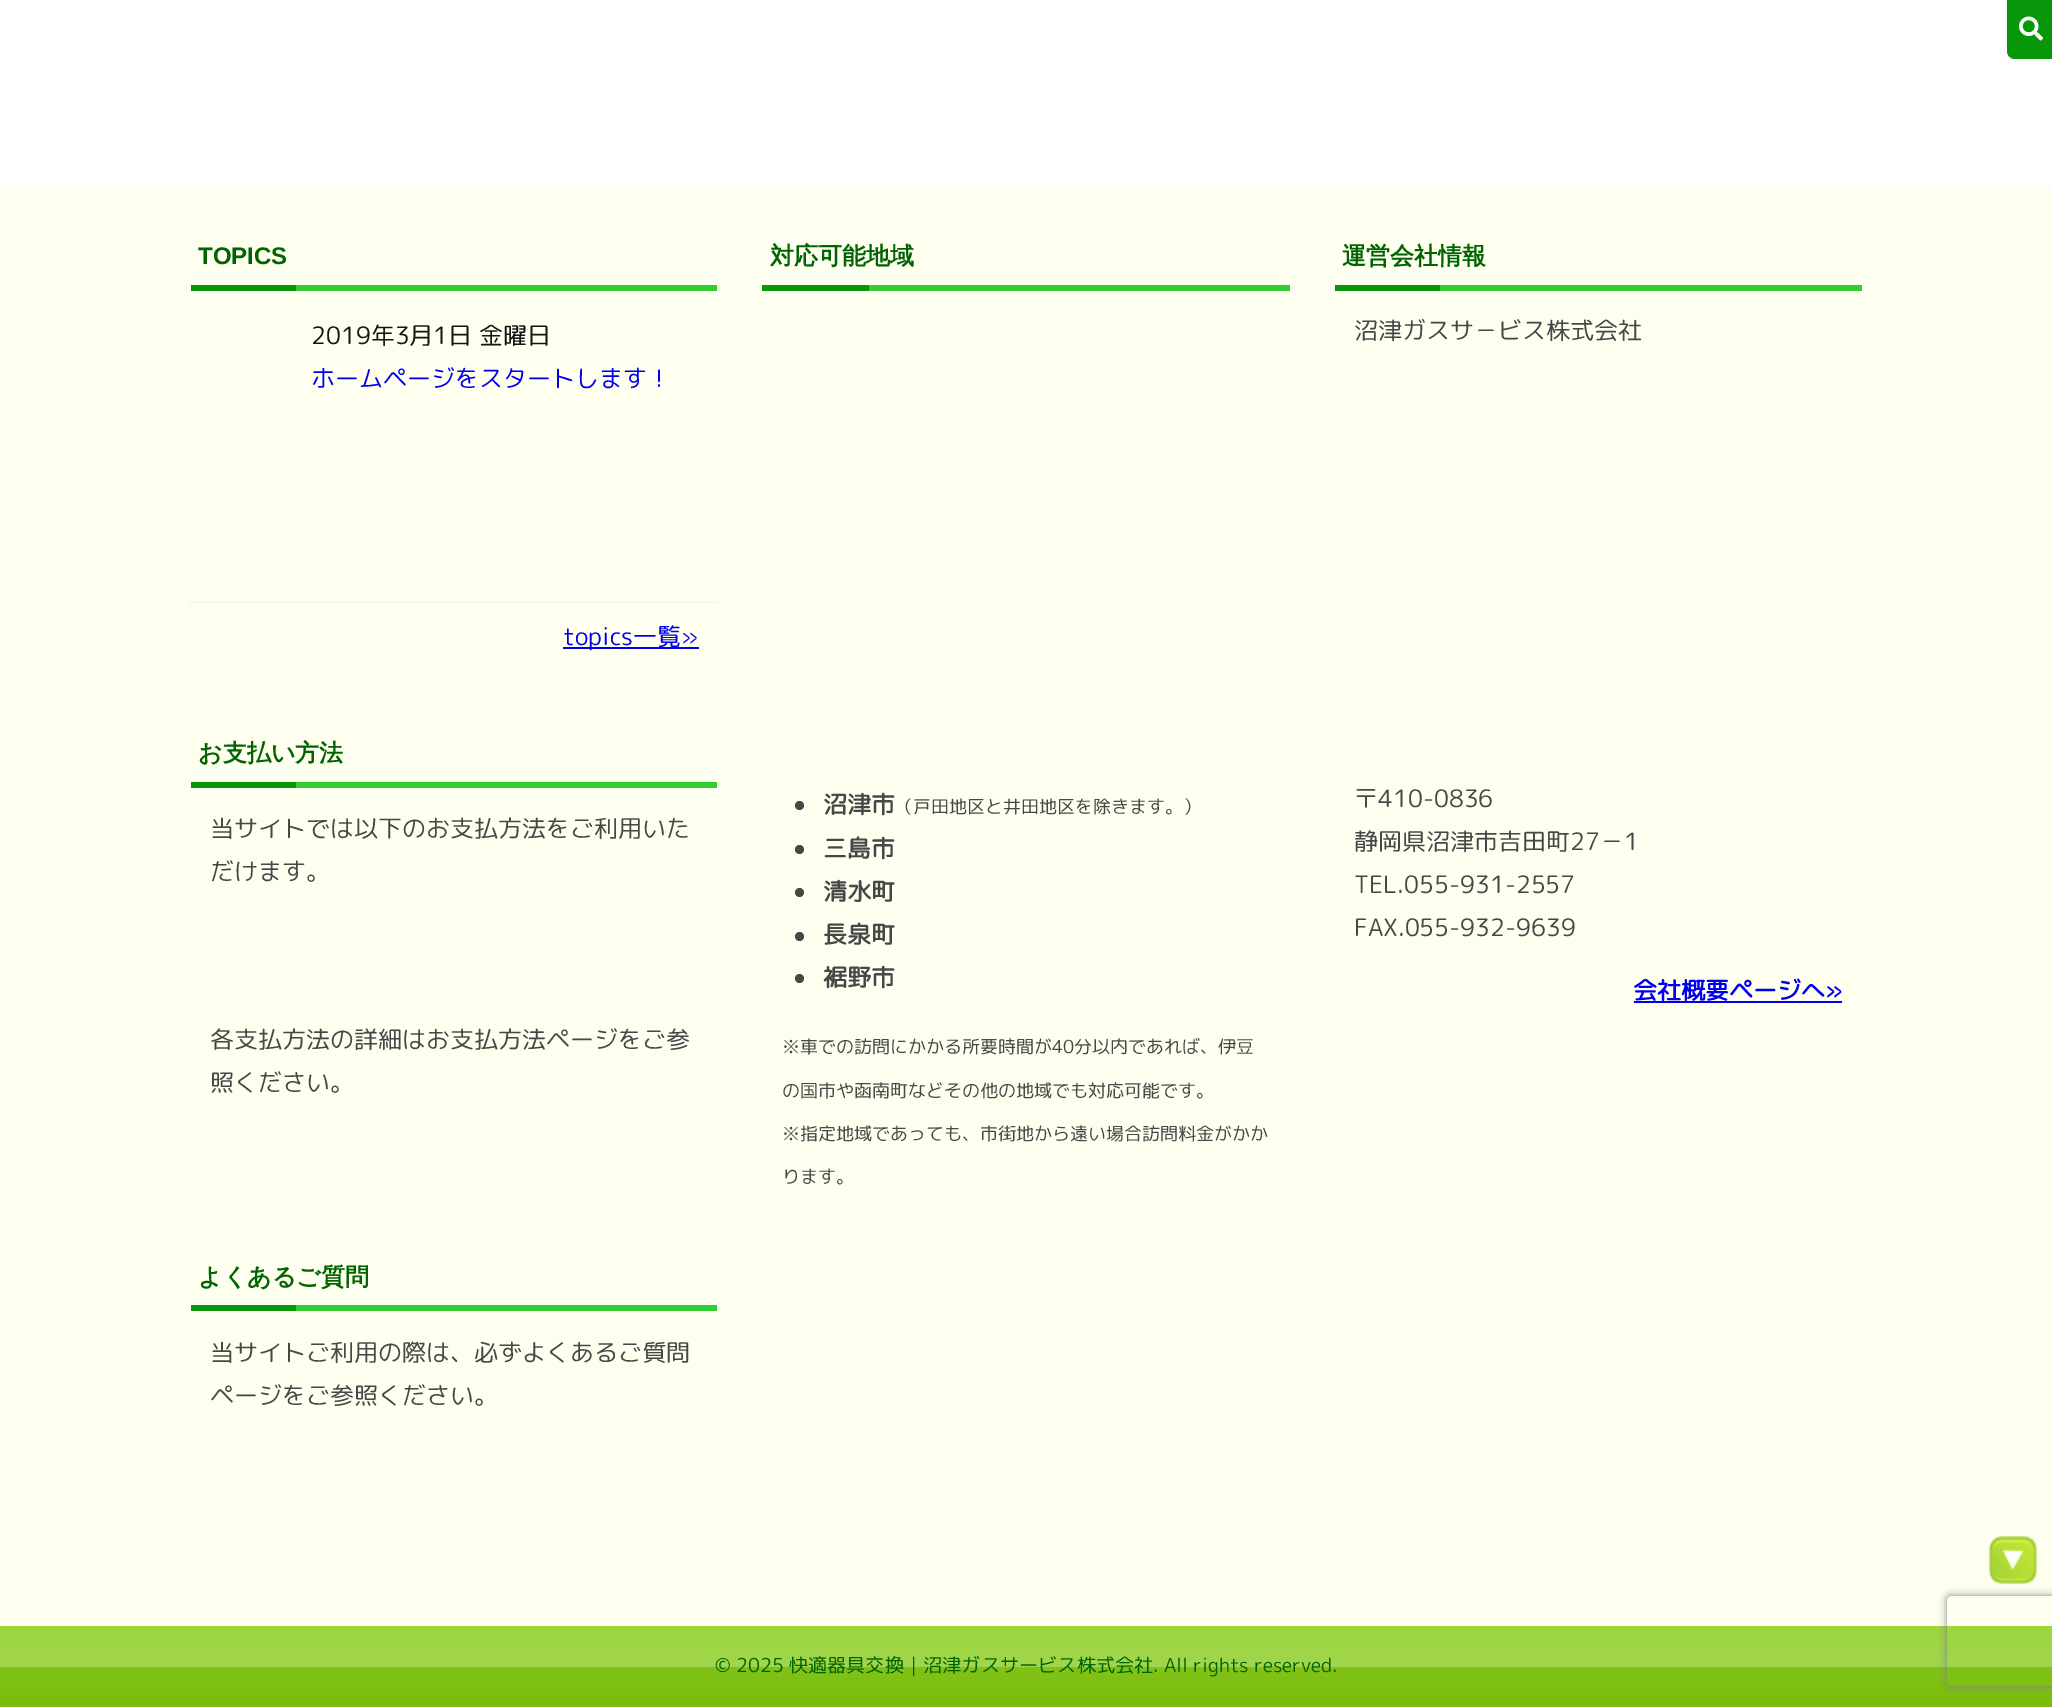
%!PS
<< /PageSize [2052 1707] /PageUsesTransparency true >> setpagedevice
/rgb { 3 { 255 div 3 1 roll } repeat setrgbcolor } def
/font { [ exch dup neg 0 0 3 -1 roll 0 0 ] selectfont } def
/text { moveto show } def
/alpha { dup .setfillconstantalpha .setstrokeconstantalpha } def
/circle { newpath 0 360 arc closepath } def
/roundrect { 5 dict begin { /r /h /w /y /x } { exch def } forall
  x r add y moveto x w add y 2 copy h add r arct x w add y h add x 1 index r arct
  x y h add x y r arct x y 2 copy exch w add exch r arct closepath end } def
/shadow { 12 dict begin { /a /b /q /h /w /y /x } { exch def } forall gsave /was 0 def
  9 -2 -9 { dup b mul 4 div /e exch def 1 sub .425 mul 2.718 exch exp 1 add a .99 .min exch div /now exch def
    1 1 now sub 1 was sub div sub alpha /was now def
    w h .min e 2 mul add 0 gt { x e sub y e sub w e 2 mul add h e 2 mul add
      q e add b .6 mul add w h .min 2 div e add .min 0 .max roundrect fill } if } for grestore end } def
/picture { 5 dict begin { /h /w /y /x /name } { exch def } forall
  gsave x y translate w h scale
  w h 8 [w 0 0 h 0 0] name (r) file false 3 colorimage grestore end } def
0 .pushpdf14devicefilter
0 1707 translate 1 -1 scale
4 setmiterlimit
255 255 255 rgb
0 0 2052 1707 rectfill
8 150 11 rgb
2007 0 moveto 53 0 rlineto 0 51 rlineto 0 4.5 -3.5 8 -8 8 rcurveto -37 0 rlineto -4.5 0 -8 -3.5 -8 -8 rcurveto closepath fill
(img_01.rgb) 2019 16 24 25 picture
255 255 240 rgb
0 185 2052 1441 rectfill
50 205 50 rgb
296 285 421 6 rectfill
8 150 11 rgb
191 285 105 6 rectfill
238 238 238 rgb
1.5 setlinewidth
[1.5 1.5] 0 setdash
190.5 602 moveto 526.5 0 rlineto stroke
0 0 238 rgb
563 647 136 2 rectfill
50 205 50 rgb
296 782 421 6 rectfill
8 150 11 rgb
191 782 105 6 rectfill
50 205 50 rgb
296 1305 421 6 rectfill
8 150 11 rgb
191 1305 105 6 rectfill
50 205 50 rgb
869 285 421 6 rectfill
8 150 11 rgb
762 285 107 6 rectfill
71 71 71 rgb
799.5 805.5 4.5 circle fill
799.5 849.5 4.5 circle fill
799.5 892.5 4.5 circle fill
799.5 936.5 4.5 circle fill
799.5 978.5 4.5 circle fill
50 205 50 rgb
1440 285 422 6 rectfill
8 150 11 rgb
1335 285 105 6 rectfill
0 0 238 rgb
1634 1001 208 2 rectfill
gsave 0 1626 moveto 2052 0 rlineto 0 81 rlineto -2052 0 rlineto closepath clip newpath
<< /ShadingType 2 /ColorSpace /DeviceRGB /Coords [1026 1626 1026 1707] /Extend [true true] /Function << /FunctionType 3 /Domain [0 1] /Functions [<< /FunctionType 2 /Domain [0 1] /C0 [0.616 0.835 0.227] /C1 [0.631 0.835 0.31] /N 1 >> << /FunctionType 2 /Domain [0 1] /C0 [0.631 0.835 0.31] /C1 [0.502 0.761 0.09] /N 1 >> << /FunctionType 2 /Domain [0 1] /C0 [0.502 0.761 0.09] /C1 [0.486 0.737 0.039] /N 1 >>] /Bounds [0.5 0.51] /Encode [0 1 0 1 0 1] >> >> shfill grestore
gsave
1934 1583 moveto 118 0 rlineto 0 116 rlineto -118 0 rlineto closepath 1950 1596 moveto 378 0 rlineto 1.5 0 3 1.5 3 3 rcurveto 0 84 rlineto 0 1.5 -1.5 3 -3 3 rcurveto -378 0 rlineto -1.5 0 -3 -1.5 -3 -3 rcurveto 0 -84 rlineto 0 -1.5 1.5 -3 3 -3 rcurveto closepath eoclip newpath
128 128 128 rgb
1947 1596 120 90 3 4 1 shadow
grestore
(img_02.rgb) 1989 1536 48 48 picture
/LiberationSans-Bold 24 font
0 100 0 rgb
(TOPICS) 198 264 text
/RoundedMplus1c-Regular 24 font
22 22 22 rgb
(2019年3月1日 金曜日) 311 344 text
0 0 238 rgb
(ホームページをスタートします！) 311 387 text
(topics一覧») 563 645 text
/WenQuanYiZenHei-Bold 24 font
0 100 0 rgb
(お支払い方法) 198 761 text
/RoundedMplus1c-Regular 24 font
71 71 71 rgb
(当サイトでは以下のお支払方法をご利用いた) 210 837 text
(だけます。) 210 880 text
(各支払方法の詳細はお支払方法ページをご参) 210 1048 text
(照ください。) 210 1091 text
/WenQuanYiZenHei-Bold 24 font
0 100 0 rgb
(よくあるご質問) 198 1285 text
/RoundedMplus1c-Regular 24 font
71 71 71 rgb
(当サイトご利用の際は、必ずよくあるご質問) 210 1361 text
(ページをご参照ください。) 210 1404 text
/WenQuanYiZenHei-Bold 24 font
0 100 0 rgb
(対応可能地域) 770 264 text
/RoundedMplus1c-Bold 24 font
71 71 71 rgb
(沼津市) 823 813 text
/RoundedMplus1c-Regular 18 font
(（戸田地区と井田地区を除きます。）) 895 813 text
/RoundedMplus1c-Bold 24 font
(三島市) 823 857 text
(清水町) 823 900 text
(長泉町) 823 943 text
(裾野市) 823 986 text
/RoundedMplus1c-Regular 18 font
(※車での訪問にかかる所要時間が40分以内であれば、伊豆) 782 1053 text
(の国市や函南町などその他の地域でも対応可能です。) 782 1097 text
(※指定地域であっても、市街地から遠い場合訪問料金がかか) 782 1140 text
(ります。) 782 1183 text
/WenQuanYiZenHei-Bold 24 font
0 100 0 rgb
(運営会社情報) 1342 264 text
/RoundedMplus1c-Regular 24 font
71 71 71 rgb
(沼津ガスサ－ビス株式会社) 1354 339 text
(〒410-0836) 1354 807 text
(静岡県沼津市吉田町27－1) 1354 850 text
(TEL.055-931-2557) 1354 893 text
(FAX.055-932-9639) 1354 936 text
/RoundedMplus1c-Bold 24 font
0 0 238 rgb
(会社概要ページへ») 1633 999 text
/RoundedMplus1c-Regular 19.2 font
0 100 0 rgb
(© 2025 快適器具交換｜沼津ガスサービス株式会社. All rights reserved.) 715 1672 text
.poppdf14devicefilter showpage
